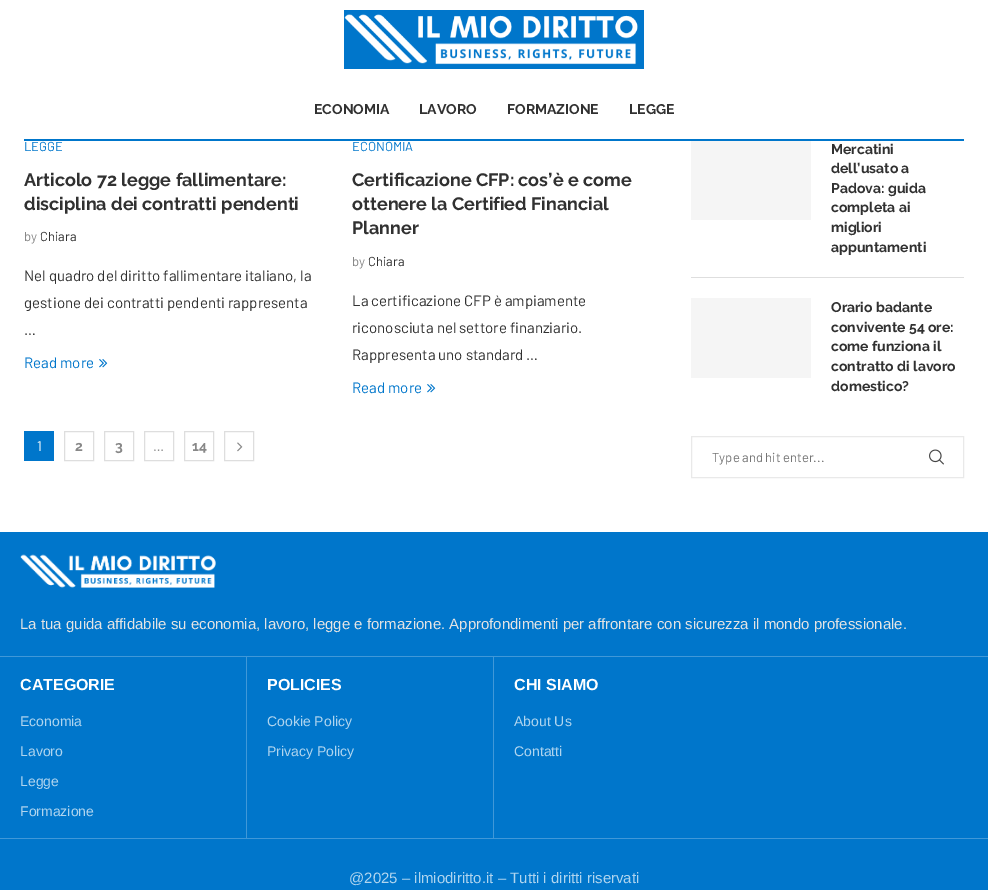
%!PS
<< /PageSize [988 890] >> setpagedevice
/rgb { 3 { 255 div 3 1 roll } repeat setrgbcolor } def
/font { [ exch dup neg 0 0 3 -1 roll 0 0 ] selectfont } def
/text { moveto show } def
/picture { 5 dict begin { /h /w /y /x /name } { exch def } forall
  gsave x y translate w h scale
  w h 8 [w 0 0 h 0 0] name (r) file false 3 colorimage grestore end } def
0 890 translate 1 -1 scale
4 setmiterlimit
255 255 255 rgb
0 0 988 890 rectfill
(img_01.rgb) 344 10 300 59 picture
0 118 203 rgb
24 139 940 2 rectfill
(img_02.rgb) 99 359 9 9 picture
(img_02.rgb) 427 384 9 9 picture
24 431 30 30 rectfill
222 222 222 rgb
64.5 431.5 29 29 rectstroke
104.5 431.5 29 29 rectstroke
144.5 431.5 29 29 rectstroke
184.5 431.5 29 29 rectstroke
224.5 431.5 29 29 rectstroke
(img_03.rgb) 237 442 6 10 picture
691 277 273 1 rectfill
245 245 245 rgb
691 141 120 79 rectfill
691 298 120 80 rectfill
233 233 233 rgb
691.5 436.5 272 41 rectstroke
(img_04.rgb) 929 449 15 16 picture
0 118 203 rgb
0 532 988 358 rectfill
64 152 216 rgb
0 656 988 1 rectfill
(img_05.rgb) 20 554 196 34 picture
246 657 1 181 rectfill
493 657 1 181 rectfill
0 838 988 1 rectfill
/Raleway-Bold 14 font
49 49 49 rgb
(ECONOMIA) 314 114 text
(LAVORO) 419 114 text
(FORMAZIONE) 507 114 text
(LEGGE) 629 114 text
/Barlow-Regular 13 font
0 118 203 rgb
(LEGGE) 24 151 text
/Raleway-Bold 18 font
49 49 49 rgb
(Articolo 72 legge fallimentare:) 24 186 text
(disciplina dei contratti pendenti) 24 210 text
/Barlow-Regular 13 font
136 136 136 rgb
(by) 24 241 text
49 49 49 rgb
(Chiara) 40 241 text
/Barlow-Regular 15 font
(Nel quadro del diritto fallimentare italiano, la) 24 281 text
(gestione dei contratti pendenti rappresenta) 24 308 text
(…) 24 335 text
0 118 203 rgb
(Read more) 24 368 text
/Barlow-Regular 13 font
(ECONOMIA) 352 151 text
/Raleway-Bold 18 font
49 49 49 rgb
(Certificazione CFP: cos’è e come) 352 186 text
(ottenere la Certified Financial) 352 210 text
(Planner) 352 234 text
/Barlow-Regular 13 font
136 136 136 rgb
(by) 352 266 text
49 49 49 rgb
(Chiara) 368 266 text
/Barlow-Regular 15 font
(La certificazione CFP è ampiamente) 352 306 text
(riconosciuta nel settore finanziario.) 352 333 text
(Rappresenta uno standard …) 352 360 text
0 118 203 rgb
(Read more) 352 393 text
/Barlow-Regular 14 font
255 255 255 rgb
(1) 37 451 text
/Raleway-Bold 14 font
136 136 136 rgb
(2) 75 451 text
(3) 115 451 text
/Barlow-Regular 14 font
(…) 153 451 text
/Raleway-Bold 14 font
(14) 192 451 text
49 49 49 rgb
(Mercatini) 831 154 text
(dell’usato a) 831 173 text
(Padova: guida) 831 193 text
(completa ai) 831 212 text
(migliori) 831 232 text
(appuntamenti) 831 252 text
(Orario badante) 831 312 text
(convivente 54 ore:) 831 332 text
(come funziona il) 831 351 text
(contratto di lavoro) 831 371 text
(domestico?) 831 391 text
/Barlow-Regular 13 font
117 117 117 rgb
(Type and hit enter...) 712 462 text
/LiberationSans-Regular 15 font
228 228 228 rgb
(La tua guida affidabile su economia, lavoro, legge e formazione. Approfondimenti per affrontare con sicurezza il mondo professionale.) 20 629 text
/LiberationSans-Bold 16 font
255 255 255 rgb
(CATEGORIE) 20 690 text
/LiberationSans-Regular 14 font
176 213 239 rgb
(Economia) 20 726 text
(Lavoro) 20 756 text
(Legge) 20 786 text
(Formazione) 20 816 text
/LiberationSans-Bold 16 font
255 255 255 rgb
(POLICIES) 267 690 text
/LiberationSans-Regular 14 font
176 213 239 rgb
(Cookie Policy) 267 726 text
(Privacy Policy) 267 756 text
/LiberationSans-Bold 16 font
255 255 255 rgb
(CHI SIAMO) 514 690 text
/LiberationSans-Regular 14 font
176 213 239 rgb
(About Us) 514 726 text
(Contatti) 514 756 text
/LiberationSans-Regular 15 font
(@2025 – ilmiodiritto.it – Tutti i diritti riservati) 349 883 text
showpage
